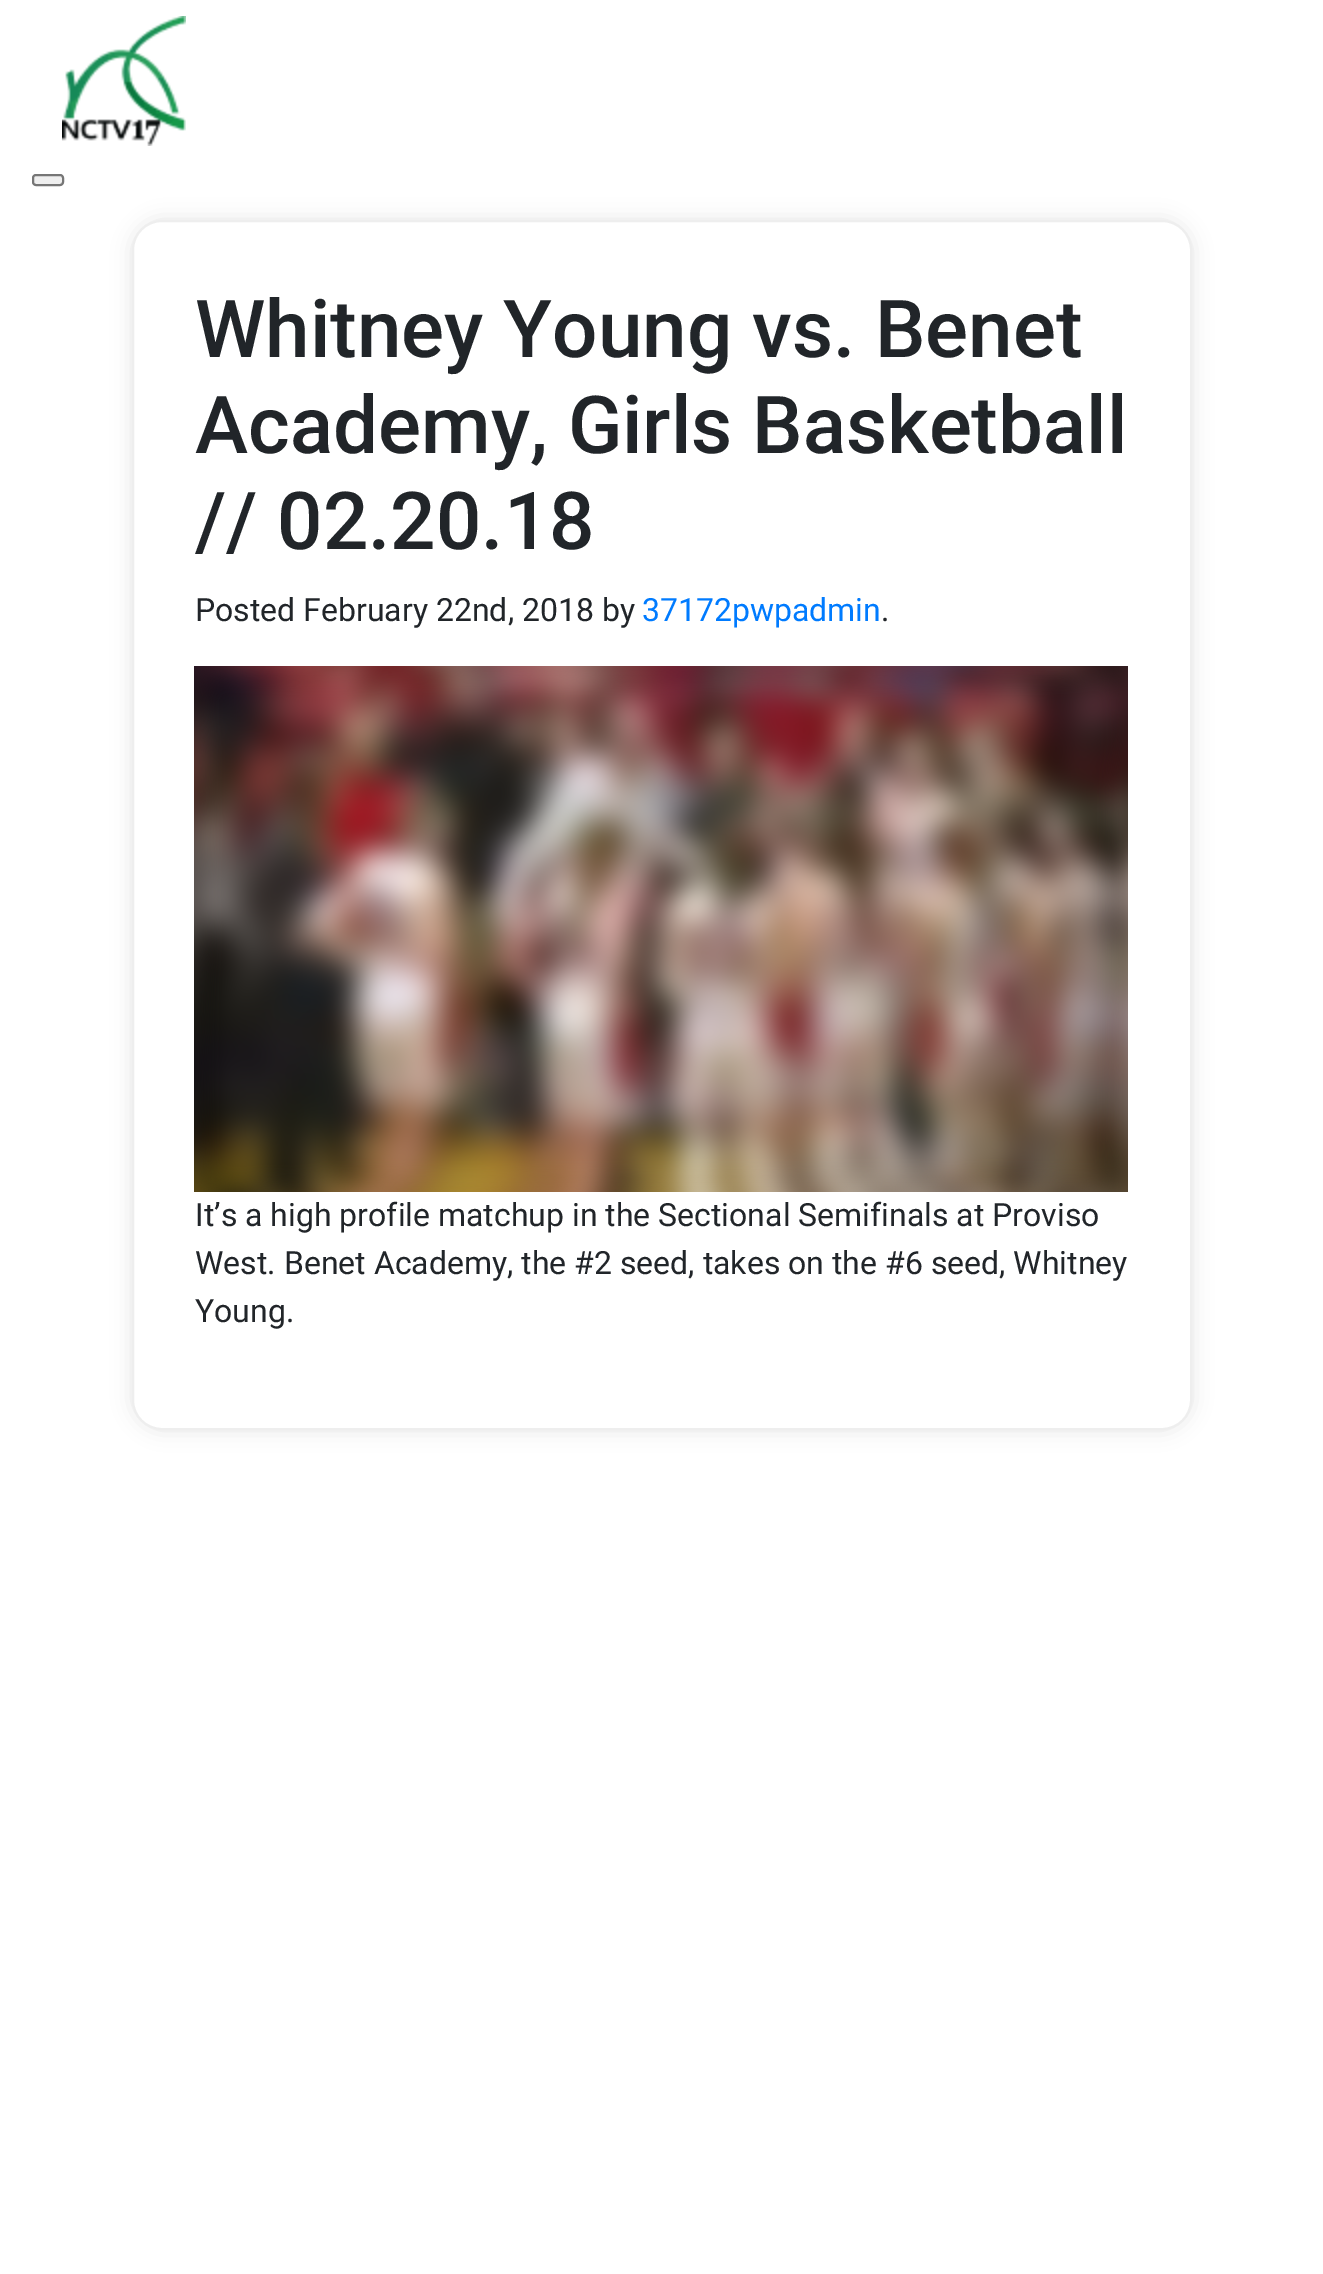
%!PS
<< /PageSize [1323 2274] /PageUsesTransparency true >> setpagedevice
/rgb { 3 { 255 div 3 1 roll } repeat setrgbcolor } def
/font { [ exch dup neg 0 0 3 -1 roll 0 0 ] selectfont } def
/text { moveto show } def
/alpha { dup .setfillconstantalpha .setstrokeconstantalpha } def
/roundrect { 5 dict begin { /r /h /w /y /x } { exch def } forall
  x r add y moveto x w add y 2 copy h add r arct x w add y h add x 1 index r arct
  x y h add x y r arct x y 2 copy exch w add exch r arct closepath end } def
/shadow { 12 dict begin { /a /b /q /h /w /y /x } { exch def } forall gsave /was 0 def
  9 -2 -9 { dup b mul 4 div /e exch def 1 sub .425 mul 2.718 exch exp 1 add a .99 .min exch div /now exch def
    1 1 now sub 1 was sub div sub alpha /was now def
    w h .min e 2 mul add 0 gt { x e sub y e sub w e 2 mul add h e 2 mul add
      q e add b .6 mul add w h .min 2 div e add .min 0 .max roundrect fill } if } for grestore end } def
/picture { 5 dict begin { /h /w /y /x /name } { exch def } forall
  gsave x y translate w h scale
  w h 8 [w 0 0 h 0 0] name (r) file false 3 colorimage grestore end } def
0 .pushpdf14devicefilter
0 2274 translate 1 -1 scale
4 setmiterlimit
255 255 255 rgb
0 0 1323 2274 rectfill
(img_01.rgb) 62 16 124 130 picture
239 239 239 rgb
33 175 30 10 3 roundrect gsave fill grestore
118 118 118 rgb
2 setlinewidth
stroke
gsave
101 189 moveto 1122 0 rlineto 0 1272 rlineto -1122 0 rlineto closepath 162 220 moveto 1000 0 rlineto 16.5 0 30 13.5 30 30 rcurveto 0 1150 rlineto 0 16.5 -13.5 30 -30 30 rcurveto -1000 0 rlineto -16.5 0 -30 -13.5 -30 -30 rcurveto 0 -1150 rlineto 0 -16.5 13.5 -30 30 -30 rcurveto closepath eoclip newpath
0 0 0 rgb
132 220 1060 1210 30 10 0.11 shadow
grestore
238 238 238 rgb
133 221 1058 1208 29 roundrect stroke
(img_02.rgb) 194 666 934 526 picture
/Roboto-Medium 80 font
33 37 41 rgb
(Whitney Young vs. Benet) 195 357 text
(Academy, Girls Basketball) 195 453 text
(// 02.20.18) 195 549 text
/Roboto-Regular 32 font
(Posted February 22nd, 2018 by) 195 621 text
0 123 255 rgb
(37172pwpadmin) 642 621 text
33 37 41 rgb
(.) 881 621 text
(It’s a high profile matchup in the Sectional Semifinals at Proviso) 195 1226 text
(West. Benet Academy, the #2 seed, takes on the #6 seed, Whitney) 195 1274 text
(Young.) 195 1322 text
.poppdf14devicefilter showpage
